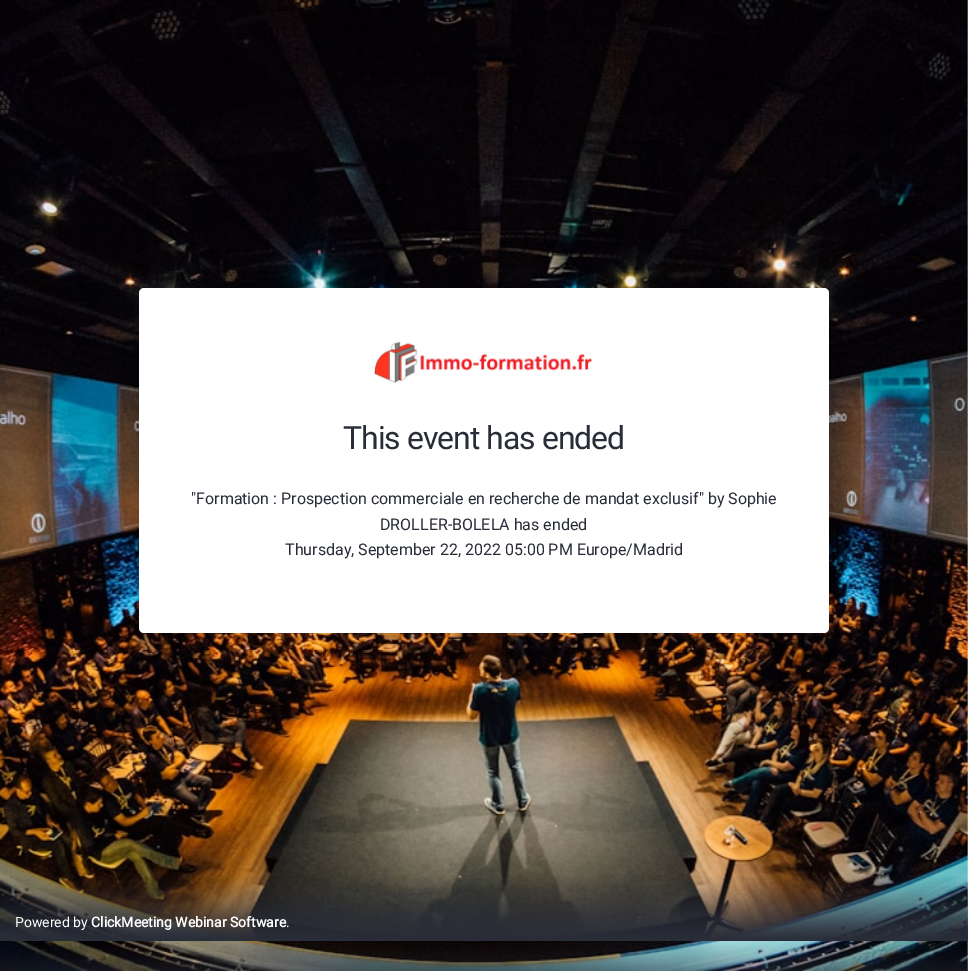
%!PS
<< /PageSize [968 971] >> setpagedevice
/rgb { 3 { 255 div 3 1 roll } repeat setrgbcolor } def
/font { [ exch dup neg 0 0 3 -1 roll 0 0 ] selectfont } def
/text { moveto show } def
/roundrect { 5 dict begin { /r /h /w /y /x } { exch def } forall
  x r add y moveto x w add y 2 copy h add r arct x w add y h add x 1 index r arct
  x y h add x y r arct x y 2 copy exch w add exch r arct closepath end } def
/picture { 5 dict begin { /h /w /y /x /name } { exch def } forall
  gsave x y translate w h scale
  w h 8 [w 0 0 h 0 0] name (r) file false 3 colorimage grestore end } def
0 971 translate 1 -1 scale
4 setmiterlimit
255 255 255 rgb
0 0 968 971 rectfill
(img_01.rgb) 0 0 968 971 picture
139 288 690 345 5 roundrect fill
(img_02.rgb) 374 341 219 42 picture
(img_03.rgb) 0 876 968 95 picture
/Roboto-Regular 32 font
41 45 56 rgb
343 449 moveto -1 0 (This event has ended) ashow
/Roboto-Regular 16 font
("Formation : Prospection commerciale en recherche de mandat exclusif" by Sophie) 191 504 text
(DROLLER-BOLELA has ended) 380 530 text
(Thursday, September 22, 2022 05:00 PM Europe/Madrid) 285 555 text
/Roboto-Regular 14 font
255 255 255 rgb
(Powered by) 15 927 text
/Roboto-Bold 14 font
(ClickMeeting Webinar Software) 91 927 text
/Roboto-Regular 14 font
(.) 286 927 text
showpage
